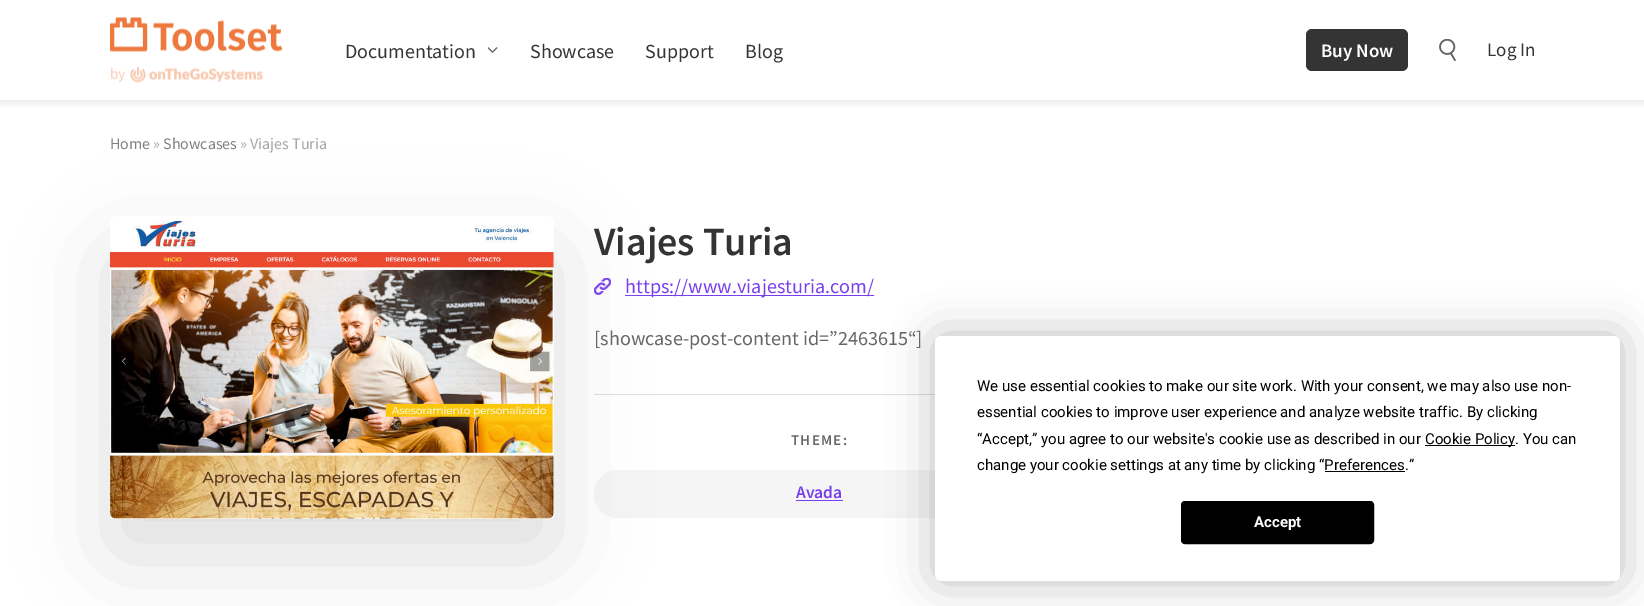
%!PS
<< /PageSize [1644 606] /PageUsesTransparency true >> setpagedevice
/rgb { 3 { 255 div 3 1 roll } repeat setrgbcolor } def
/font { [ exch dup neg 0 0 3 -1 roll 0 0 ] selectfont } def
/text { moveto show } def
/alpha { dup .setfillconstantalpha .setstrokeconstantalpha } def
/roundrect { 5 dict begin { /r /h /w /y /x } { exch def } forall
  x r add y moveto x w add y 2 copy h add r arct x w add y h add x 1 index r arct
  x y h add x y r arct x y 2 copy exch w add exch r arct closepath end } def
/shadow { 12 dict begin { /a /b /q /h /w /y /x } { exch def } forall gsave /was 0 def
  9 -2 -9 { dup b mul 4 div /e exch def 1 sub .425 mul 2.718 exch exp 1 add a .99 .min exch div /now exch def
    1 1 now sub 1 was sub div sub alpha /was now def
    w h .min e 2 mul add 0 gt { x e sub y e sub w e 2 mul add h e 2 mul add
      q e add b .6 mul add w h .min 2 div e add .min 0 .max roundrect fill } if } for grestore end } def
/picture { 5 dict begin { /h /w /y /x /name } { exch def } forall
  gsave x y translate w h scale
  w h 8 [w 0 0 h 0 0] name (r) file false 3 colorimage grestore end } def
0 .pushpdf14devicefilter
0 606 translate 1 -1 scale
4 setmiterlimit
255 255 255 rgb
0 0 1644 606 rectfill
gsave
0 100 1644 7 rectclip
0 0 0 rgb
0 0 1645 100 0 6 0.15 shadow
grestore
(img_01.rgb) 110 17 173 66 picture
(img_02.rgb) 488 47 10 6 picture
52 52 52 rgb
1306 29 102 42 6 roundrect fill
(img_03.rgb) 1439 39 17 22 picture
(img_05.rgb) 594 278 17 17 picture
120 62 237 rgb
625 295 249 1 rectfill
221 221 221 rgb
594 394 341 1 rectfill
245 245 245 rgb
594 470 450 48 24 roundrect fill
gsave
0 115 moveto 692 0 rlineto 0 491 rlineto -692 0 rlineto closepath 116 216 moveto 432 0 rlineto 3.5 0 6 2.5 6 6 rcurveto 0 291 rlineto 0 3.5 -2.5 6 -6 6 rcurveto -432 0 rlineto -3.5 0 -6 -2.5 -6 -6 rcurveto 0 -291 rlineto 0 -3.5 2.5 -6 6 -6 rcurveto closepath eoclip newpath
196 196 196 rgb
110 253 444 302 6 45.5 0.6 shadow
grestore
(img_04.rgb) 110 220 444 299 picture
120 62 237 rgb
796 500 47 1 rectfill
0 0 0 rgb
935 336 685 245 6 22 0.25 shadow
255 255 255 rgb
935 336 685 245 6 roundrect fill
0 0 0 rgb
1425 445 90 1 rectfill
1325 471 80 1 rectfill
1181.5 501.5 192 42 3.5 roundrect gsave fill grestore
stroke
/SourceSansPro-Regular 20 font
52 52 52 rgb
(Documentation) 345 58 text
(Showcase) 530 58 text
(Support) 645 58 text
(Blog) 745 58 text
/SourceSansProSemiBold-SemiBold 19 font
255 255 255 rgb
(Buy Now) 1321 57 text
/SourceSansPro-Regular 19 font
52 52 52 rgb
(Log In) 1487 56 text
/SourceSansPro-Regular 16 font
128 128 128 rgb
(Home) 110 149 text
166 166 166 rgb
(») 153 149 text
128 128 128 rgb
(Showcases) 163 149 text
166 166 166 rgb
(» Viajes Turia) 240 149 text
/SourceSansProSemiBold-SemiBold 40 font
52 52 52 rgb
(Viajes Turia) 594 255 text
/SourceSansPro-Regular 20.2 font
120 62 237 rgb
(https://www.viajesturia.com/) 625 293 text
102 102 102 rgb
([showcase-post-content id=”2463615“]) 594 345 text
/SourceSansProSemiBold-SemiBold 15 font
791 445 moveto 1.25 0 (THEME:) ashow
/SourceSansProSemiBold-SemiBold 17.5 font
120 62 237 rgb
(Avada) 796 498 text
/Roboto-Regular 15 font
0 0 0 rgb
(We use essential cookies to make our site work. With your consent, we may also use non-) 977 391 text
(essential cookies to improve user experience and analyze website traffic. By clicking) 977 417 text
(“Accept,” you agree to our website's cookie use as described in our) 977 444 text
(Cookie Policy. You can) 1425 444 text
(change your cookie settings at any time by clicking “Preferences.”) 977 470 text
/Roboto-Bold 15 font
255 255 255 rgb
(Accept) 1254 527 text
.poppdf14devicefilter showpage
